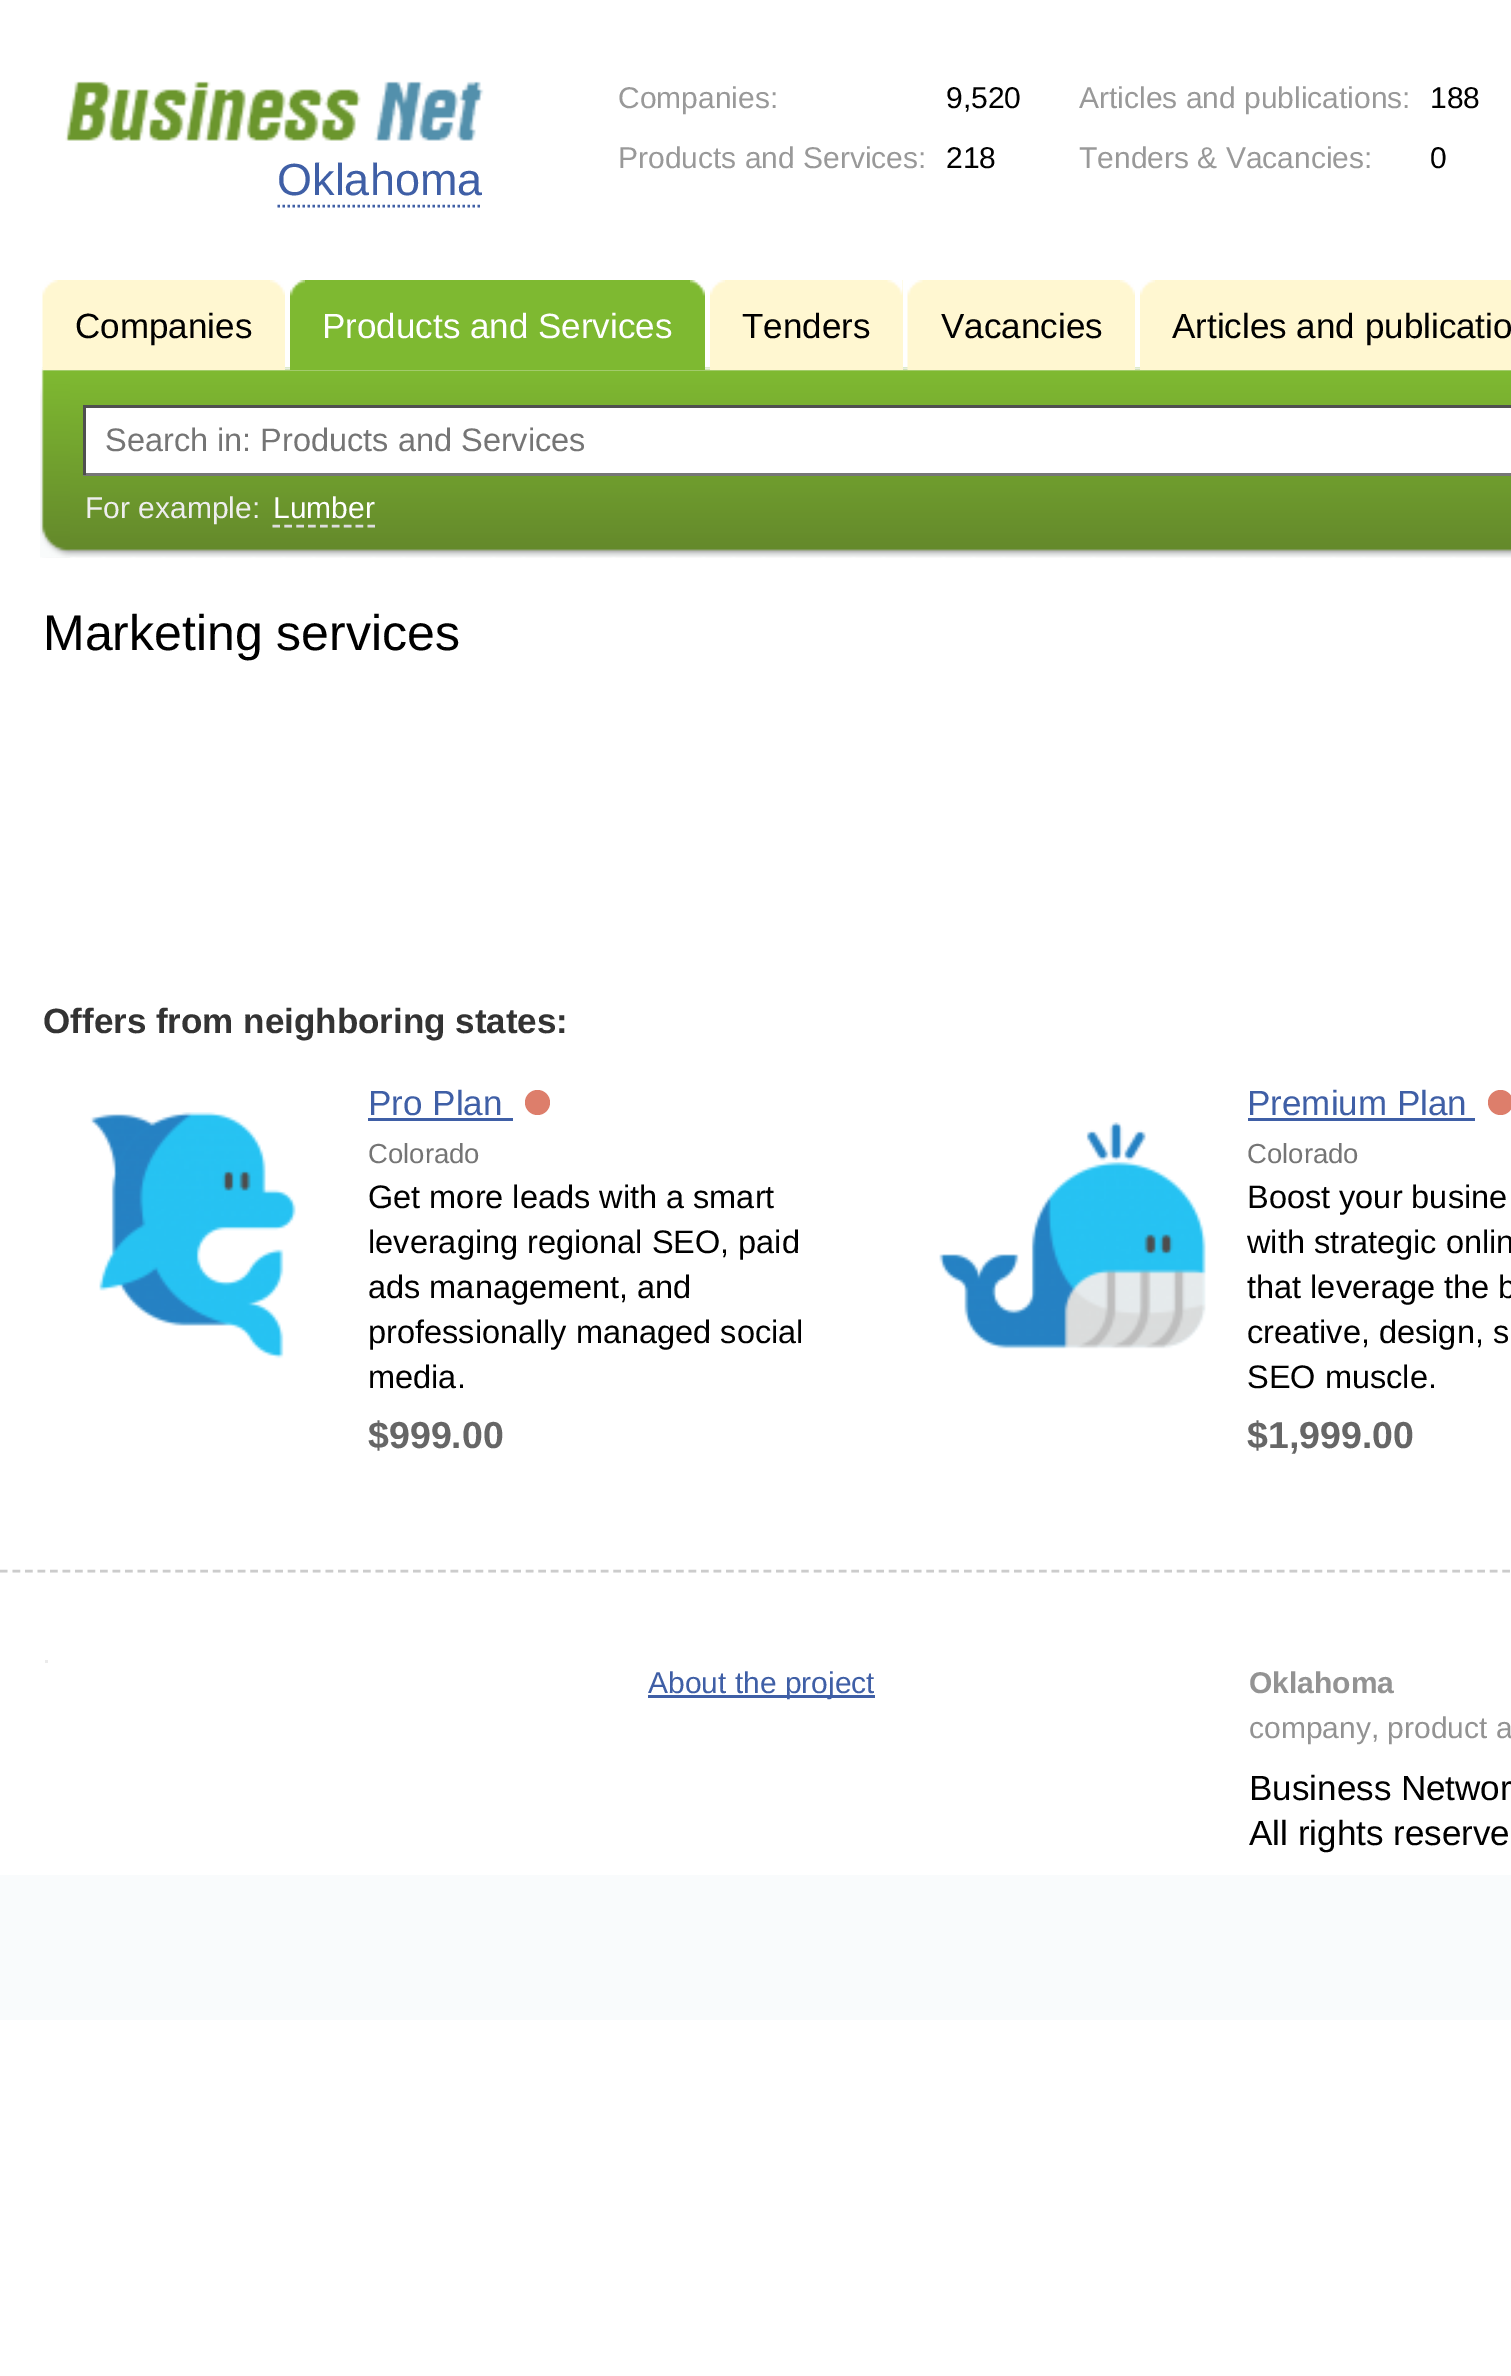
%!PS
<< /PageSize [1511 2376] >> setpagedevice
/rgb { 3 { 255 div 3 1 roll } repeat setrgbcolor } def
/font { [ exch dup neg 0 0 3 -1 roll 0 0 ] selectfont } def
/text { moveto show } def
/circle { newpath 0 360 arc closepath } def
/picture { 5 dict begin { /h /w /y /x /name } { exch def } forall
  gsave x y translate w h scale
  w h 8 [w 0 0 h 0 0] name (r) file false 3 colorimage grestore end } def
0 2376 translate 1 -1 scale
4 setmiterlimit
255 255 255 rgb
0 0 1511 2376 rectfill
63 95 166 rgb
2.5 setlinewidth
[2.5 2.5] 0 setdash
277.5 206 moveto 205 0 rlineto stroke
(img_09.rgb) 42 367 1469 191 picture
(img_10.rgb) 40 367 30 191 picture
255 247 209 rgb
57 280 228 90 rectfill
(img_02.rgb) 270 280 15 15 picture
(img_03.rgb) 42 280 16 90 picture
126 185 49 rgb
290 280 415 90 rectfill
(img_04.rgb) 690 280 15 16 picture
(img_05.rgb) 290 280 15 16 picture
255 247 209 rgb
710 280 193 90 rectfill
(img_06.rgb) 887 280 16 15 picture
(img_07.rgb) 710 280 15 15 picture
922 280 213 90 rectfill
(img_02.rgb) 1120 280 15 15 picture
(img_08.rgb) 907 280 16 90 picture
1140 280 371 90 rectfill
(img_07.rgb) 1140 280 15 15 picture
255 255 255 rgb
86 408 1425 65 rectfill
79 79 79 rgb
83 405 1428 3 rectfill
118 118 118 rgb
83 473 1428 3 rectfill
79 79 79 rgb
83 405 3 70 rectfill
221 221 221 rgb
[7.5 4.38] 0 setdash
272.5 526 moveto 102.5 0 rlineto stroke
63 95 166 rgb
368 1118 145 3 rectfill
(img_11.rgb) 90 1112 206 247 picture
221 126 107 rgb
537.5 1102.5 12.5 circle fill
63 95 166 rgb
1248 1118 227 3 rectfill
(img_12.rgb) 939 1122 267 227 picture
221 126 107 rgb
1500.5 1102.5 12.5 circle fill
249 251 252 rgb
0 1875 1511 145 rectfill
204 204 204 rgb
[7.5 5.02] 0 setdash
0 1571 moveto 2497.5 0 rlineto stroke
235 235 235 rgb
45 1660 3 3 rectfill
63 95 166 rgb
648 1695 227 3 rectfill
/LiberationSans-Regular 30 font
153 153 153 rgb
(Companies:) 618 108 text
0 0 0 rgb
(9,520) 946 108 text
153 153 153 rgb
(Products and Services:) 618 168 text
0 0 0 rgb
(218) 946 168 text
153 153 153 rgb
(Articles and publications:) 1079 108 text
0 0 0 rgb
(188) 1430 108 text
153 153 153 rgb
(Tenders & Vacancies:) 1079 168 text
0 0 0 rgb
(0) 1430 168 text
/LiberationSans-Regular 45 font
63 95 166 rgb
(Oklahoma) 277 195 text
(img_01.rgb) 65 81 419 82 picture
/LiberationSans-Regular 35 font
0 0 0 rgb
(Companies) 75 338 text
255 255 255 rgb
(Products and Services) 322 338 text
0 0 0 rgb
(Tenders) 742 338 text
(Vacancies) 941 338 text
(Articles and publicatio) 1172 338 text
/LiberationSans-Regular 32.5 font
117 117 117 rgb
(Search in: Products and Services) 105 451 text
/LiberationSans-Regular 30 font
238 238 238 rgb
(For example:) 85 518 text
255 255 255 rgb
(Lumber) 273 518 text
/LiberationSans-Regular 50 font
0 0 0 rgb
(Marketing services) 43 650 text
/LiberationSans-Bold 35 font
51 51 51 rgb
(Offers from neighboring states:) 43 1033 text
/LiberationSans-Regular 35 font
63 95 166 rgb
(Pro Plan) 368 1115 text
/LiberationSans-Regular 27.5 font
117 117 117 rgb
(Colorado) 368 1163 text
/LiberationSans-Regular 32.5 font
0 0 0 rgb
(Get more leads with a smart) 368 1208 text
(leveraging regional SEO, paid) 368 1253 text
(ads management, and) 368 1298 text
(professionally managed social) 368 1343 text
(media.) 368 1388 text
/LiberationSans-Bold 37.5 font
102 102 102 rgb
($999.00) 368 1448 text
/LiberationSans-Regular 35 font
63 95 166 rgb
(Premium Plan) 1247 1115 text
/LiberationSans-Regular 27.5 font
117 117 117 rgb
(Colorado) 1247 1163 text
/LiberationSans-Regular 32.5 font
0 0 0 rgb
(Boost your busine) 1247 1208 text
(with strategic onlin) 1247 1253 text
(that leverage the b) 1247 1298 text
(creative, design, s) 1247 1343 text
(SEO muscle.) 1247 1388 text
/LiberationSans-Bold 37.5 font
102 102 102 rgb
($1,999.00) 1247 1448 text
/LiberationSans-Regular 30 font
63 95 166 rgb
(About the project) 648 1693 text
/LiberationSans-Bold 30 font
147 147 147 rgb
(Oklahoma) 1249 1693 text
/LiberationSans-Regular 30 font
(company, product a) 1249 1738 text
/LiberationSans-Regular 35 font
0 0 0 rgb
(Business Networ) 1249 1800 text
(All rights reserve) 1249 1845 text
showpage
